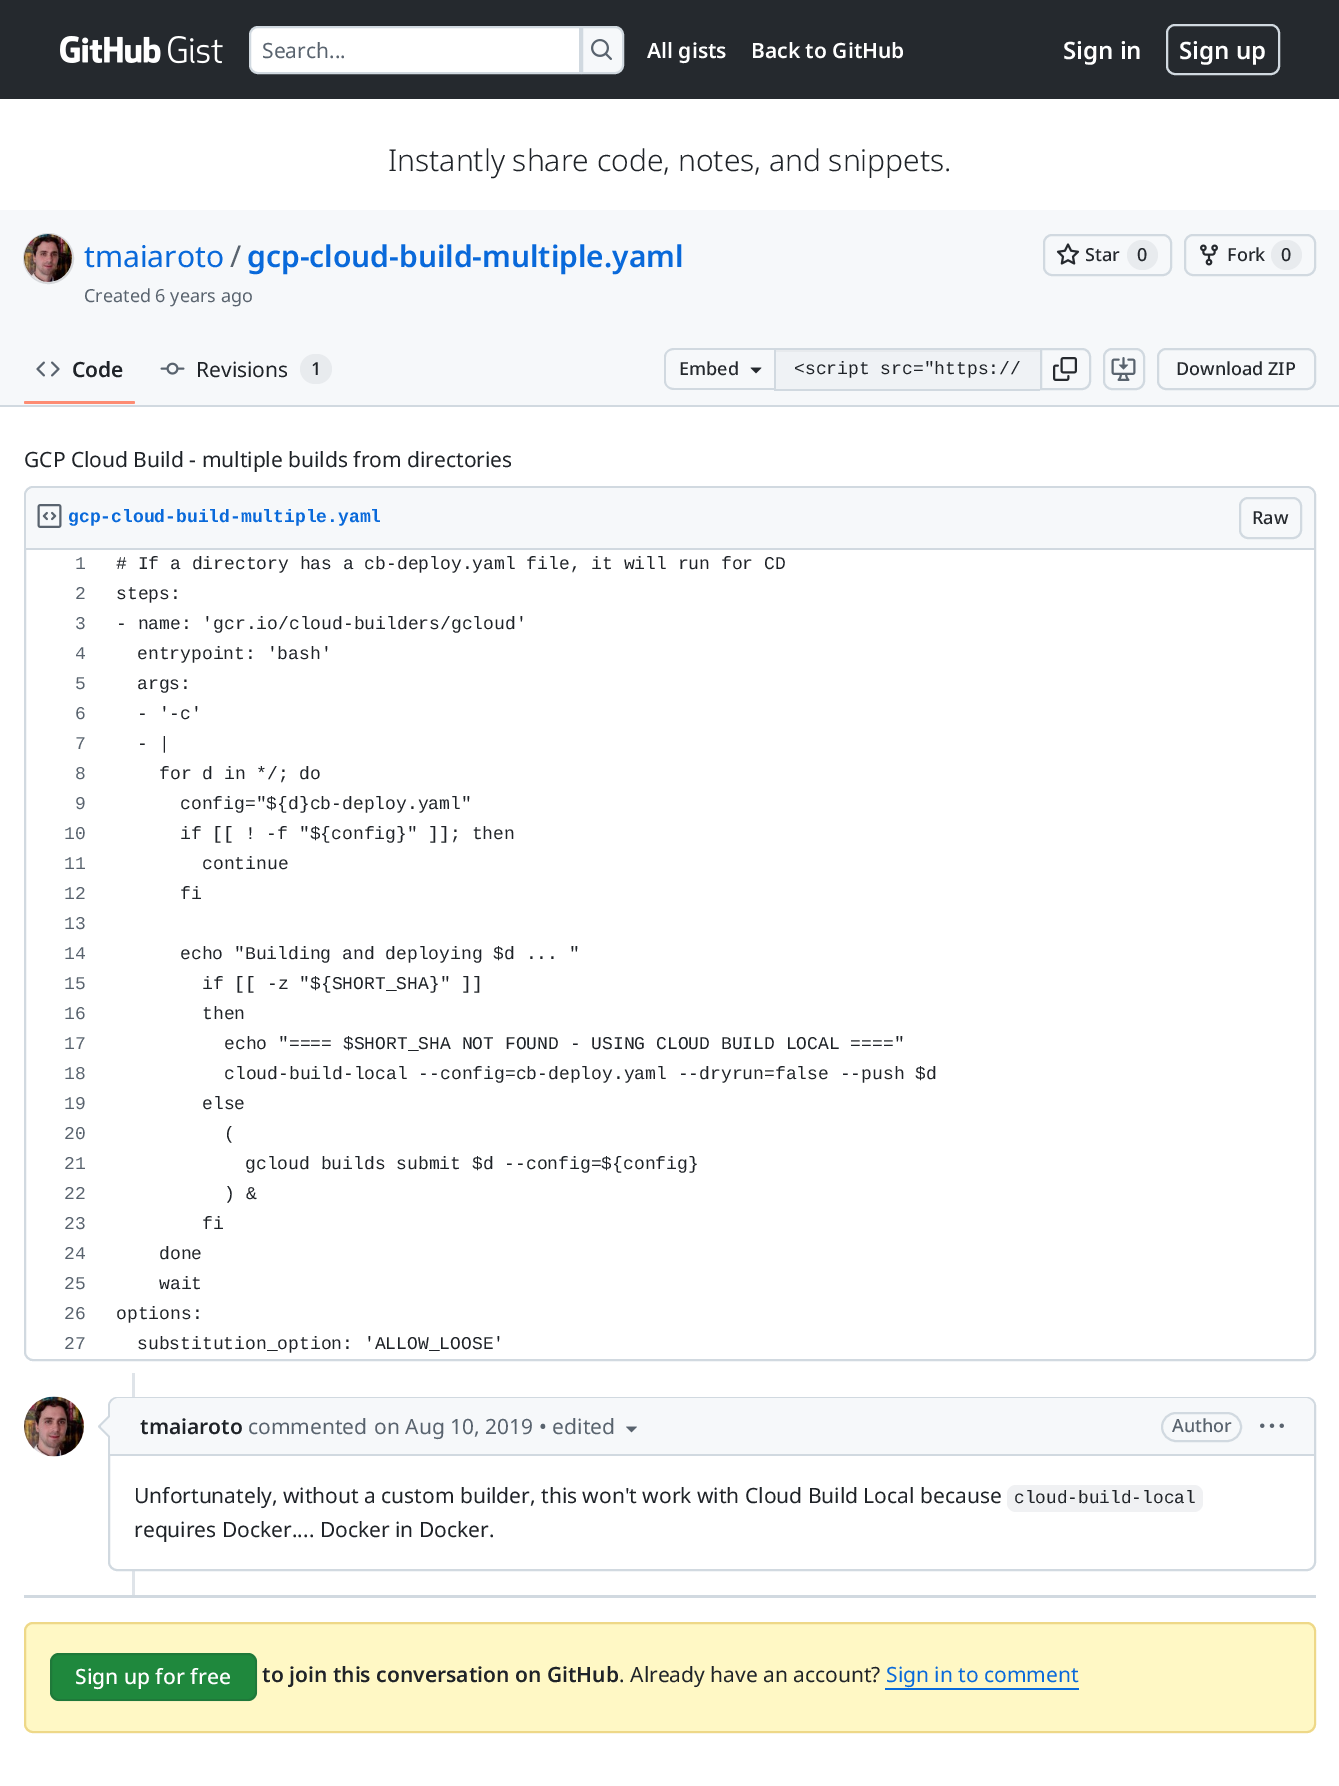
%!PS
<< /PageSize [1339 1786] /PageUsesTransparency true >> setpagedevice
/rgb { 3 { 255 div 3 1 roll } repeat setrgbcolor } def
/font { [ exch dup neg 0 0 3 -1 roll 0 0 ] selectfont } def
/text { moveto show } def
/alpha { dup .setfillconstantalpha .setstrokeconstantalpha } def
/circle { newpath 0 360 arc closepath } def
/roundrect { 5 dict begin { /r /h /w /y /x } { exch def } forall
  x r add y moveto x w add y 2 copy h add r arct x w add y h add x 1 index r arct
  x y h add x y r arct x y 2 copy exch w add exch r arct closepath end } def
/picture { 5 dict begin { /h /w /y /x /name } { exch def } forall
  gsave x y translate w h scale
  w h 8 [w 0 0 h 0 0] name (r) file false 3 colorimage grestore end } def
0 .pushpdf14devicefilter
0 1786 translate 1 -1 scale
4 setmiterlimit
255 255 255 rgb
0 0 1339 1786 rectfill
37 41 46 rgb
0 0 1339 99 rectfill
(img_01.rgb) 60 36 101 27 picture
(img_02.rgb) 168 36 55 28 picture
255 255 255 rgb
258 27 moveto 322 0 rlineto 0 46 rlineto -322 0 rlineto -4.5 0 -8 -3.5 -8 -8 rcurveto 0 -30 rlineto 0 -4.5 3.5 -8 8 -8 rcurveto closepath gsave fill grestore
209 217 224 rgb
2 setlinewidth
stroke
246 248 250 rgb
582 27 moveto 33 0 rlineto 4.5 0 8 3.5 8 8 rcurveto 0 30 rlineto 0 4.5 -3.5 8 -8 8 rcurveto -33 0 rlineto closepath gsave fill grestore
209 217 224 rgb
stroke
(img_03.rgb) 591 39 21 21 picture
1167 25 112 49 8 roundrect stroke
246 248 250 rgb
0 210 1339 195 rectfill
209 217 224 rgb
0 405 1339 2 rectfill
214 216 219 rgb
48.5 258.5 24.5 circle stroke
(img_04.rgb) 24 234 48 48 picture
209 217 224 rgb
1044 235 127 40 8 roundrect stroke
(img_05.rgb) 1056 243 24 22 picture
232 235 238 rgb
1127 240 31 30 15 roundrect fill
209 217 224 rgb
1185 235 130 40 8 roundrect stroke
(img_06.rgb) 1200 244 18 22 picture
232 235 238 rgb
1271 240 31 30 15 roundrect fill
(img_07.rgb) 36 361 24 16 picture
253 140 115 rgb
24 401 111 3 1.5 roundrect fill
(img_08.rgb) 160 362 25 13 picture
232 235 238 rgb
300 354 32 30 15 roundrect fill
209 217 224 rgb
674 348 moveto 100 0 rlineto 0 42 rlineto -100 0 rlineto -5 0 -10 -4 -10 -9 rcurveto 0 -24 rlineto 0 -5 5 -9 10 -9 rcurveto closepath 674 350 moveto 100 0 rlineto 0 38 rlineto -100 0 rlineto -5 0 -8 -3 -8 -7 rcurveto 0 -24 rlineto 0 -4 3 -7 8 -7 rcurveto closepath eofill
(img_09.rgb) 750 367 12 7 picture
239 242 245 rgb
776 352 264 37 rectfill
231 234 237 rgb
776 350 264 2 rectfill
209 217 224 rgb
774 348 266 2 rectfill
774 389 266 2 rectfill
774 348 2 42 rectfill
1041 349 moveto 41 0 rlineto 4.5 0 8 3.5 8 8 rcurveto 0 24 rlineto 0 4.5 -3.5 8 -8 8 rcurveto -41 0 rlineto closepath stroke
(img_10.rgb) 1053 357 24 24 picture
1104 349 40 40 8 roundrect stroke
(img_11.rgb) 1111 357 25 24 picture
1158 349 157 40 8 roundrect stroke
25 487 1290 873 8 roundrect stroke
246 248 250 rgb
35 488 moveto 1270 0 rlineto 5 0 9 4 9 9 rcurveto 0 52 rlineto -1288 0 rlineto 0 -52 rlineto 0 -5 4 -9 9 -9 rcurveto closepath fill
209 217 224 rgb
26 548 1288 2 rectfill
(img_12.rgb) 37 504 25 24 picture
1240 498 61 40 8 roundrect stroke
30 1360 1280 1 rectfill
(img_13.rgb) 24 1396 60 61 picture
223 228 233 rgb
132 1373 3 222 rectfill
255 255 255 rgb
109 1398 1206 172 8 roundrect gsave fill grestore
209 217 224 rgb
stroke
109.5 1415 moveto 0 23.5 rlineto -11.5 -11.5 rlineto 0 -1 rlineto 11 -11 rlineto closepath fill
246 248 250 rgb
119 1398 moveto 1186 0 rlineto 5 0 9 4 9 9 rcurveto 0 48 rlineto -1204 0 rlineto 0 -48 rlineto 0 -5 4 -9 9 -9 rcurveto closepath fill
112.5 1415 moveto 0 23.5 rlineto -11.5 -11.5 rlineto 0 -1 rlineto 11 -11 rlineto closepath fill
209 217 224 rgb
110 1454 1204 2 rectfill
(img_14.rgb) 626 1426 11 7 picture
1162 1413 79 28 14 roundrect stroke
(img_15.rgb) 1260 1423 24 5 picture
240 241 243 rgb
1007 1485 196 27 9 roundrect fill
209 217 224 rgb
24 1595 1292 3 rectfill
255 248 197 rgb
24 1622 1292 111 9 roundrect fill
0.4 alpha
212 167 44 rgb
25 1623 1290 109 8 roundrect stroke
1 alpha
31 136 61 rgb
50 1653 207 48 9 roundrect fill
0.15 alpha
31 35 40 rgb
51 1654 205 46 8 roundrect stroke
1 alpha
9 105 218 rgb
885 1688 194 2 rectfill
/NotoSans-Regular 21 font
89 99 110 rgb
(Search...) 262 58 text
/NotoSans-SemiBold 21 font
255 255 255 rgb
(All gists) 647 58 text
(Back to GitHub) 751 58 text
/NotoSans-SemiBold 24 font
(Sign in) 1063 59 text
(Sign up) 1179 59 text
/NotoSans-Light 30 font
31 35 40 rgb
(Instantly share code, notes, and snippets.) 388 171 text
/NotoSans-Regular 30 font
9 105 218 rgb
(tmaiaroto) 84 267 text
89 99 110 rgb
(/) 230 267 text
/NotoSans-SemiBold 30 font
9 105 218 rgb
(gcp-cloud-build-multiple.yaml) 247 267 text
/NotoSans-Regular 18 font
89 99 110 rgb
(Created 6 years ago) 84 302 text
/NotoSans-Medium 18 font
37 41 46 rgb
(Star) 1085 261 text
(0) 1137 261 text
(Fork) 1227 261 text
(0) 1281 261 text
/NotoSans-SemiBold 21 font
31 35 40 rgb
(Code) 72 377 text
/NotoSans-Regular 21 font
(Revisions) 196 377 text
/NotoSans-Medium 18 font
(1) 311 375 text
37 41 46 rgb
(Embed) 679 375 text
/LiberationMono-Regular 18 font
31 35 40 rgb
(<script src="https://) 794 374 text
/NotoSans-Medium 18 font
37 41 46 rgb
(Download ZIP) 1176 375 text
/NotoSans-Regular 21 font
31 35 40 rgb
(GCP Cloud Build - multiple builds from directories) 24 467 text
/LiberationMono-Bold 18 font
9 105 218 rgb
(gcp-cloud-build-multiple.yaml) 68 522 text
/NotoSans-Medium 18 font
37 41 46 rgb
(Raw) 1252 524 text
/LiberationMono-Regular 18 font
89 99 110 rgb
(1) 75 569 text
31 35 40 rgb
(# If a directory has a cb-deploy.yaml file, it will run for CD) 116 569 text
89 99 110 rgb
(2) 75 599 text
31 35 40 rgb
(steps:) 116 599 text
89 99 110 rgb
(3) 75 629 text
31 35 40 rgb
(- name: 'gcr.io/cloud-builders/gcloud') 116 629 text
89 99 110 rgb
(4) 75 659 text
31 35 40 rgb
(entrypoint: 'bash') 137 659 text
89 99 110 rgb
(5) 75 689 text
31 35 40 rgb
(args:) 137 689 text
89 99 110 rgb
(6) 75 719 text
31 35 40 rgb
(- '-c') 137 719 text
89 99 110 rgb
(7) 75 749 text
31 35 40 rgb
(- |) 137 749 text
89 99 110 rgb
(8) 75 779 text
31 35 40 rgb
(for d in */; do) 159 779 text
89 99 110 rgb
(9) 75 809 text
31 35 40 rgb
(config="${d}cb-deploy.yaml") 180 809 text
89 99 110 rgb
(10) 64 839 text
31 35 40 rgb
(if [[ ! -f "${config}" ]]; then) 180 839 text
89 99 110 rgb
(11) 64 869 text
31 35 40 rgb
(continue) 202 869 text
89 99 110 rgb
(12) 64 899 text
31 35 40 rgb
(fi) 180 899 text
89 99 110 rgb
(13) 64 929 text
(14) 64 959 text
31 35 40 rgb
(echo "Building and deploying $d ... ") 180 959 text
89 99 110 rgb
(15) 64 989 text
31 35 40 rgb
(if [[ -z "${SHORT_SHA}" ]]) 202 989 text
89 99 110 rgb
(16) 64 1019 text
31 35 40 rgb
(then) 202 1019 text
89 99 110 rgb
(17) 64 1049 text
31 35 40 rgb
(echo "==== $SHORT_SHA NOT FOUND - USING CLOUD BUILD LOCAL ====") 224 1049 text
89 99 110 rgb
(18) 64 1079 text
31 35 40 rgb
(cloud-build-local --config=cb-deploy.yaml --dryrun=false --push $d) 224 1079 text
89 99 110 rgb
(19) 64 1109 text
31 35 40 rgb
(else) 202 1109 text
89 99 110 rgb
(20) 64 1139 text
31 35 40 rgb
(\() 224 1139 text
89 99 110 rgb
(21) 64 1169 text
31 35 40 rgb
(gcloud builds submit $d --config=${config}) 245 1169 text
89 99 110 rgb
(22) 64 1199 text
31 35 40 rgb
(\) &) 224 1199 text
89 99 110 rgb
(23) 64 1229 text
31 35 40 rgb
(fi) 202 1229 text
89 99 110 rgb
(24) 64 1259 text
31 35 40 rgb
(done) 159 1259 text
89 99 110 rgb
(25) 64 1289 text
31 35 40 rgb
(wait) 159 1289 text
89 99 110 rgb
(26) 64 1319 text
31 35 40 rgb
(options:) 116 1319 text
89 99 110 rgb
(27) 64 1349 text
31 35 40 rgb
(substitution_option: 'ALLOW_LOOSE') 137 1349 text
/NotoSans-SemiBold 21 font
(tmaiaroto) 140 1434 text
/NotoSans-Regular 21 font
89 99 110 rgb
(commented) 248 1434 text
(on Aug 10, 2019) 374 1434 text
(• edited) 539 1434 text
/NotoSans-Medium 18 font
(Author) 1172 1432 text
/NotoSans-Regular 21 font
31 35 40 rgb
(Unfortunately, without a custom builder, this won't work with Cloud Build Local because) 134 1503 text
/LiberationMono-Regular 17.8 font
(cloud-build-local) 1014 1503 text
/NotoSans-Regular 21 font
(requires Docker.... Docker in Docker.) 134 1537 text
/NotoSans-Medium 21 font
255 255 255 rgb
(Sign up for free) 75 1684 text
/NotoSans-SemiBold 21 font
31 35 40 rgb
(to join this conversation on GitHub) 262 1682 text
/NotoSans-Regular 21 font
(. Already have an account?) 619 1682 text
9 105 218 rgb
(Sign in to comment) 886 1682 text
.poppdf14devicefilter showpage
